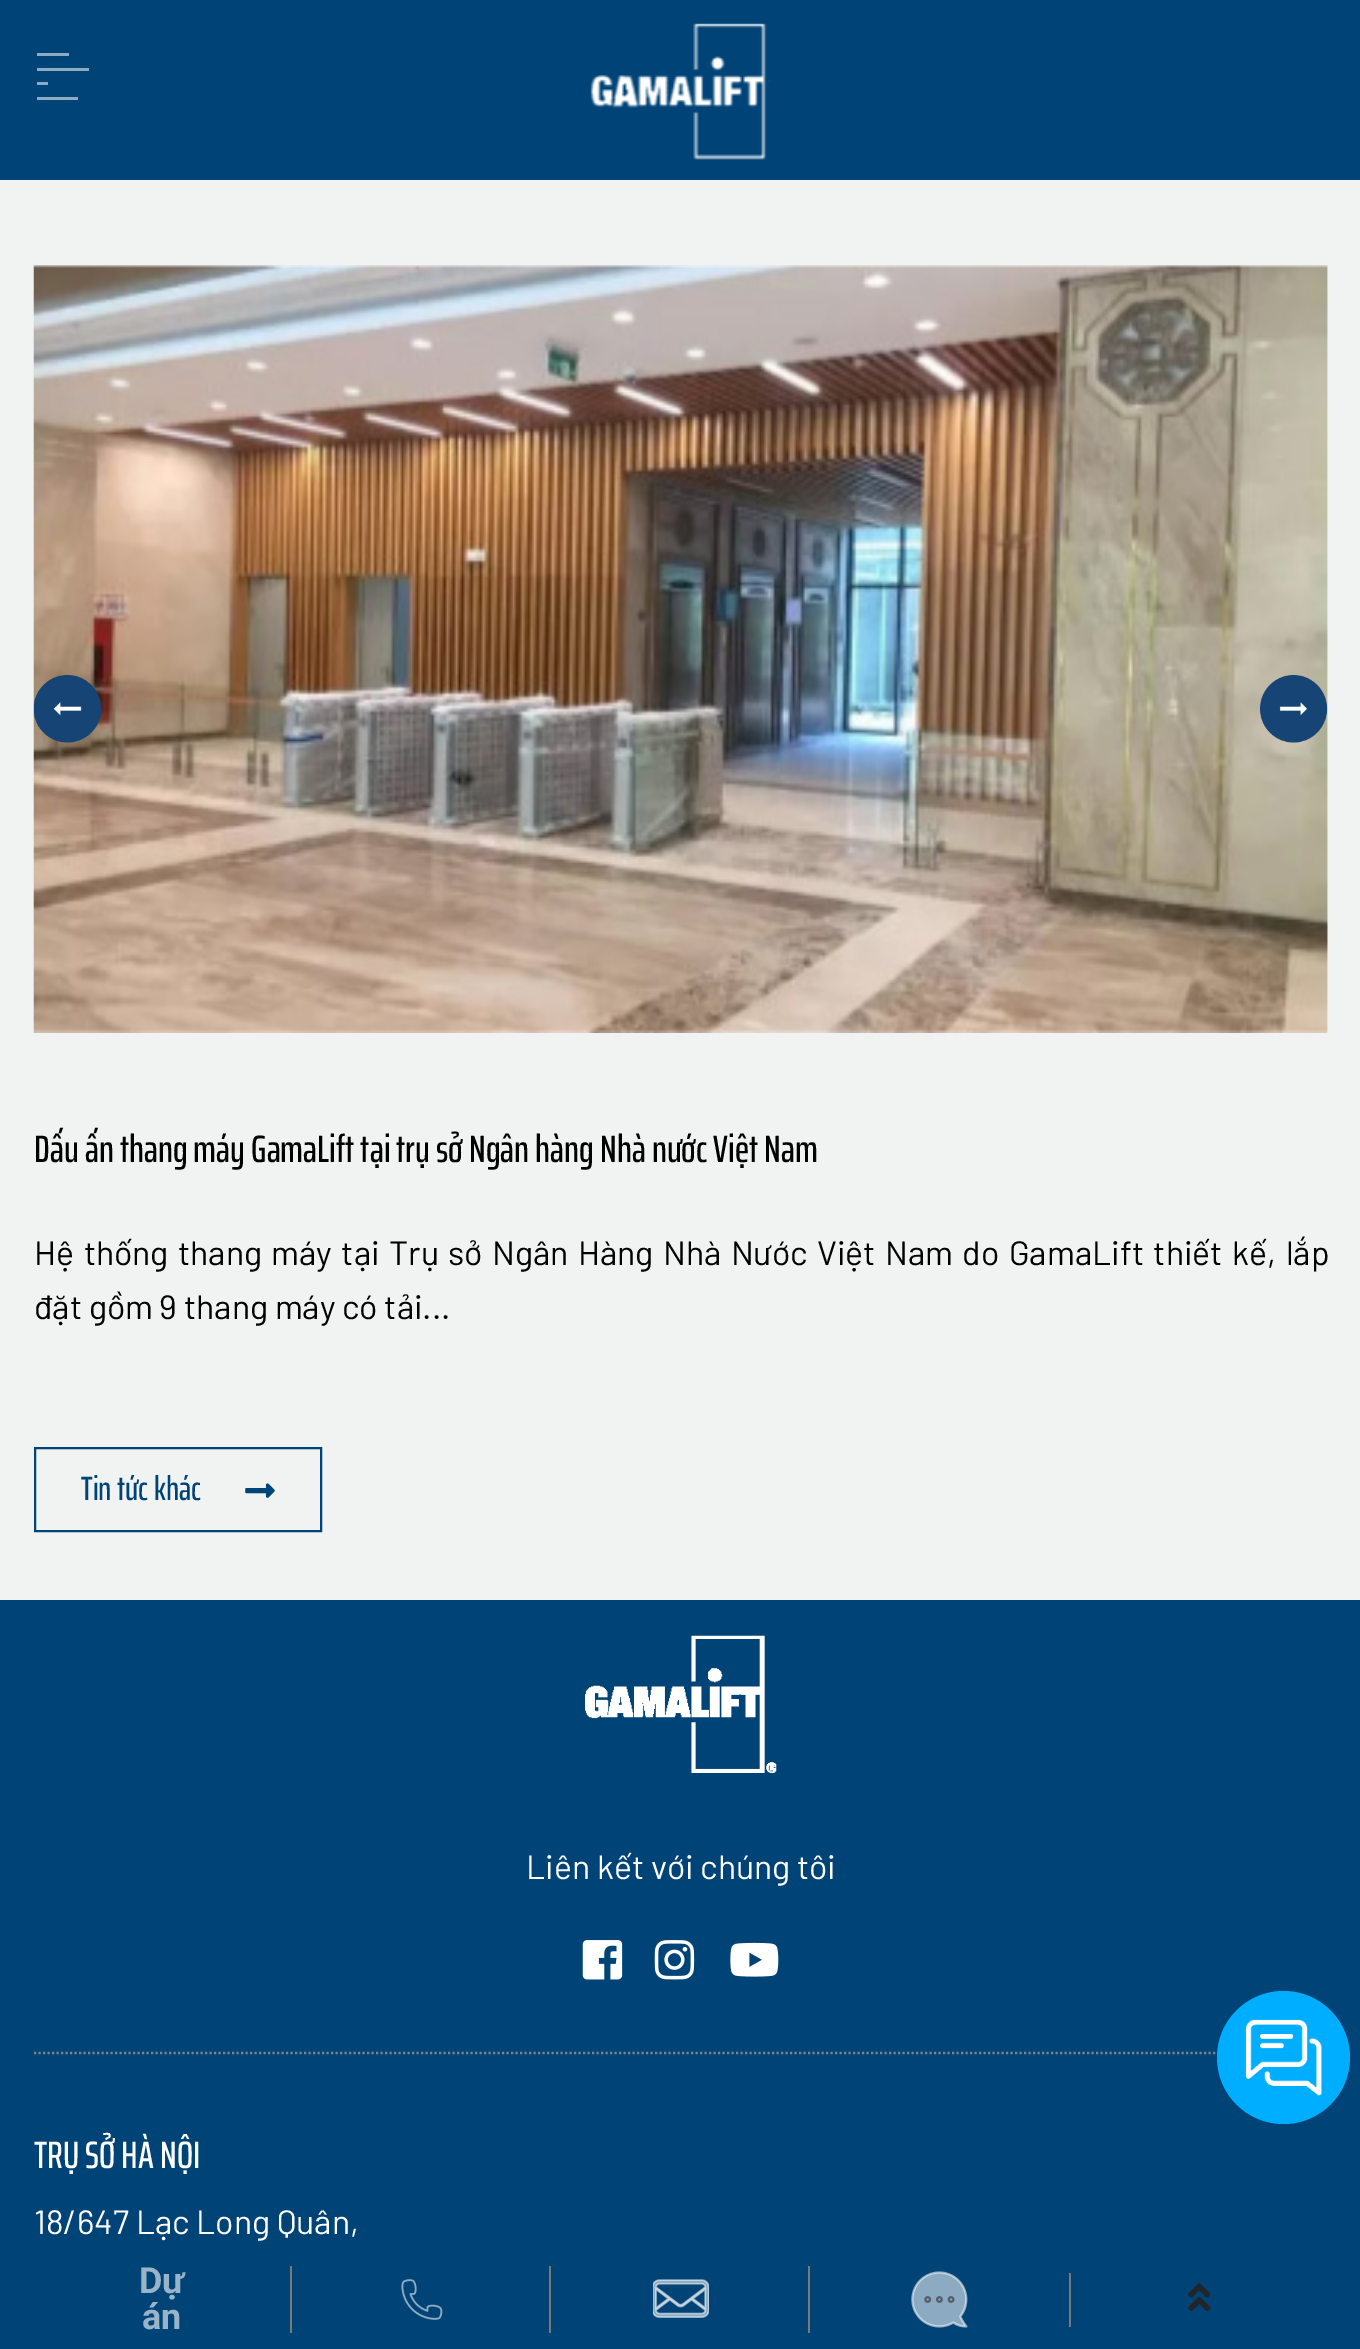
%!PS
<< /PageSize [1360 2349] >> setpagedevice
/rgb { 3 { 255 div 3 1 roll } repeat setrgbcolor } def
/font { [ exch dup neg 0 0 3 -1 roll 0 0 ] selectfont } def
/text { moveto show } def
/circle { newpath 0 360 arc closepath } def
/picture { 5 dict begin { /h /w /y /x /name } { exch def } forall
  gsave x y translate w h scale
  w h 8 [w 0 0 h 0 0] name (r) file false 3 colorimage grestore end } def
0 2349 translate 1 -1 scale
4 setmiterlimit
241 242 242 rgb
0 0 1360 2349 rectfill
255 255 255 rgb
34 266 1294 767 rectfill
(img_03.rgb) 33 265 1295 768 picture
(img_01.rgb) 33 675 69 68 picture
(img_02.rgb) 1260 675 68 68 picture
0 67 118 rgb
2 setlinewidth
35 1448 286 83 rectstroke
(img_04.rgb) 245 1483 30 15 picture
0 0 1360 180 rectfill
140 170 193 rgb
37 53 moveto 0 3 rlineto 32 0 rlineto 0 -3 rlineto closepath 37 68 moveto 0 3 rlineto 52 0 rlineto 0 -3 rlineto closepath 37 82 moveto 0 3 rlineto 11 0 rlineto 0 -3 rlineto closepath 37 97 moveto 0 3 rlineto 41 0 rlineto 0 -3 rlineto closepath fill
(img_05.rgb) 590 23 181 137 picture
0 67 118 rgb
0 1600 1360 749 rectfill
121 121 121 rgb
290 2266 2 67 rectfill
549 2266 2 67 rectfill
(img_06.rgb) 401 2279 42 41 picture
808 2266 2 67 rectfill
(img_07.rgb) 653 2279 56 39 picture
(img_08.rgb) 911 2271 57 57 picture
1069 2273 2 54 rectfill
(img_09.rgb) 1188 2283 23 29 picture
(img_10.rgb) 585 1635 192 138 picture
(img_11.rgb) 582 1940 41 40 picture
(img_12.rgb) 654 1940 41 40 picture
(img_13.rgb) 730 1942 49 35 picture
132 132 132 rgb
2.2 setlinewidth
[2.25 2.25] 0 setdash
34 2053 moveto 1293.5 0 rlineto stroke
0 174 255 rgb
1283.5 2057.5 66.5 circle fill
(img_14.rgb) 1245 2019 77 77 picture
/SairaExtraCondensed-Medium 38.25 font
0 0 0 rgb
(Dấu ấn thang máy GamaLift tại trụ sở Ngân hàng Nhà nước Việt Nam) 34 1162 text
/Barlow-Regular 33.75 font
34 1265 moveto 2.75 0 32 (Hệ thống thang máy tại Trụ sở Ngân Hàng Nhà Nước Việt Nam do GamaLift thiết kế, lắp) widthshow
(đặt gồm 9 thang máy có tải...) 34 1319 text
/SairaExtraCondensed-Medium 33.75 font
0 67 118 rgb
(Tin tức khác) 81 1500 text
/Roboto-Bold 36 font
153 180 200 rgb
(Dự) 139 2293 text
(án) 142 2329 text
/Barlow-Regular 33.75 font
255 255 255 rgb
(Liên kết với chúng tôi) 526 1879 text
/SairaExtraCondensed-Medium 38.25 font
(TRỤ SỞ HÀ NỘI) 34 2168 text
/Barlow-Regular 33.75 font
(18/647 Lạc Long Quân,) 34 2234 text
showpage
